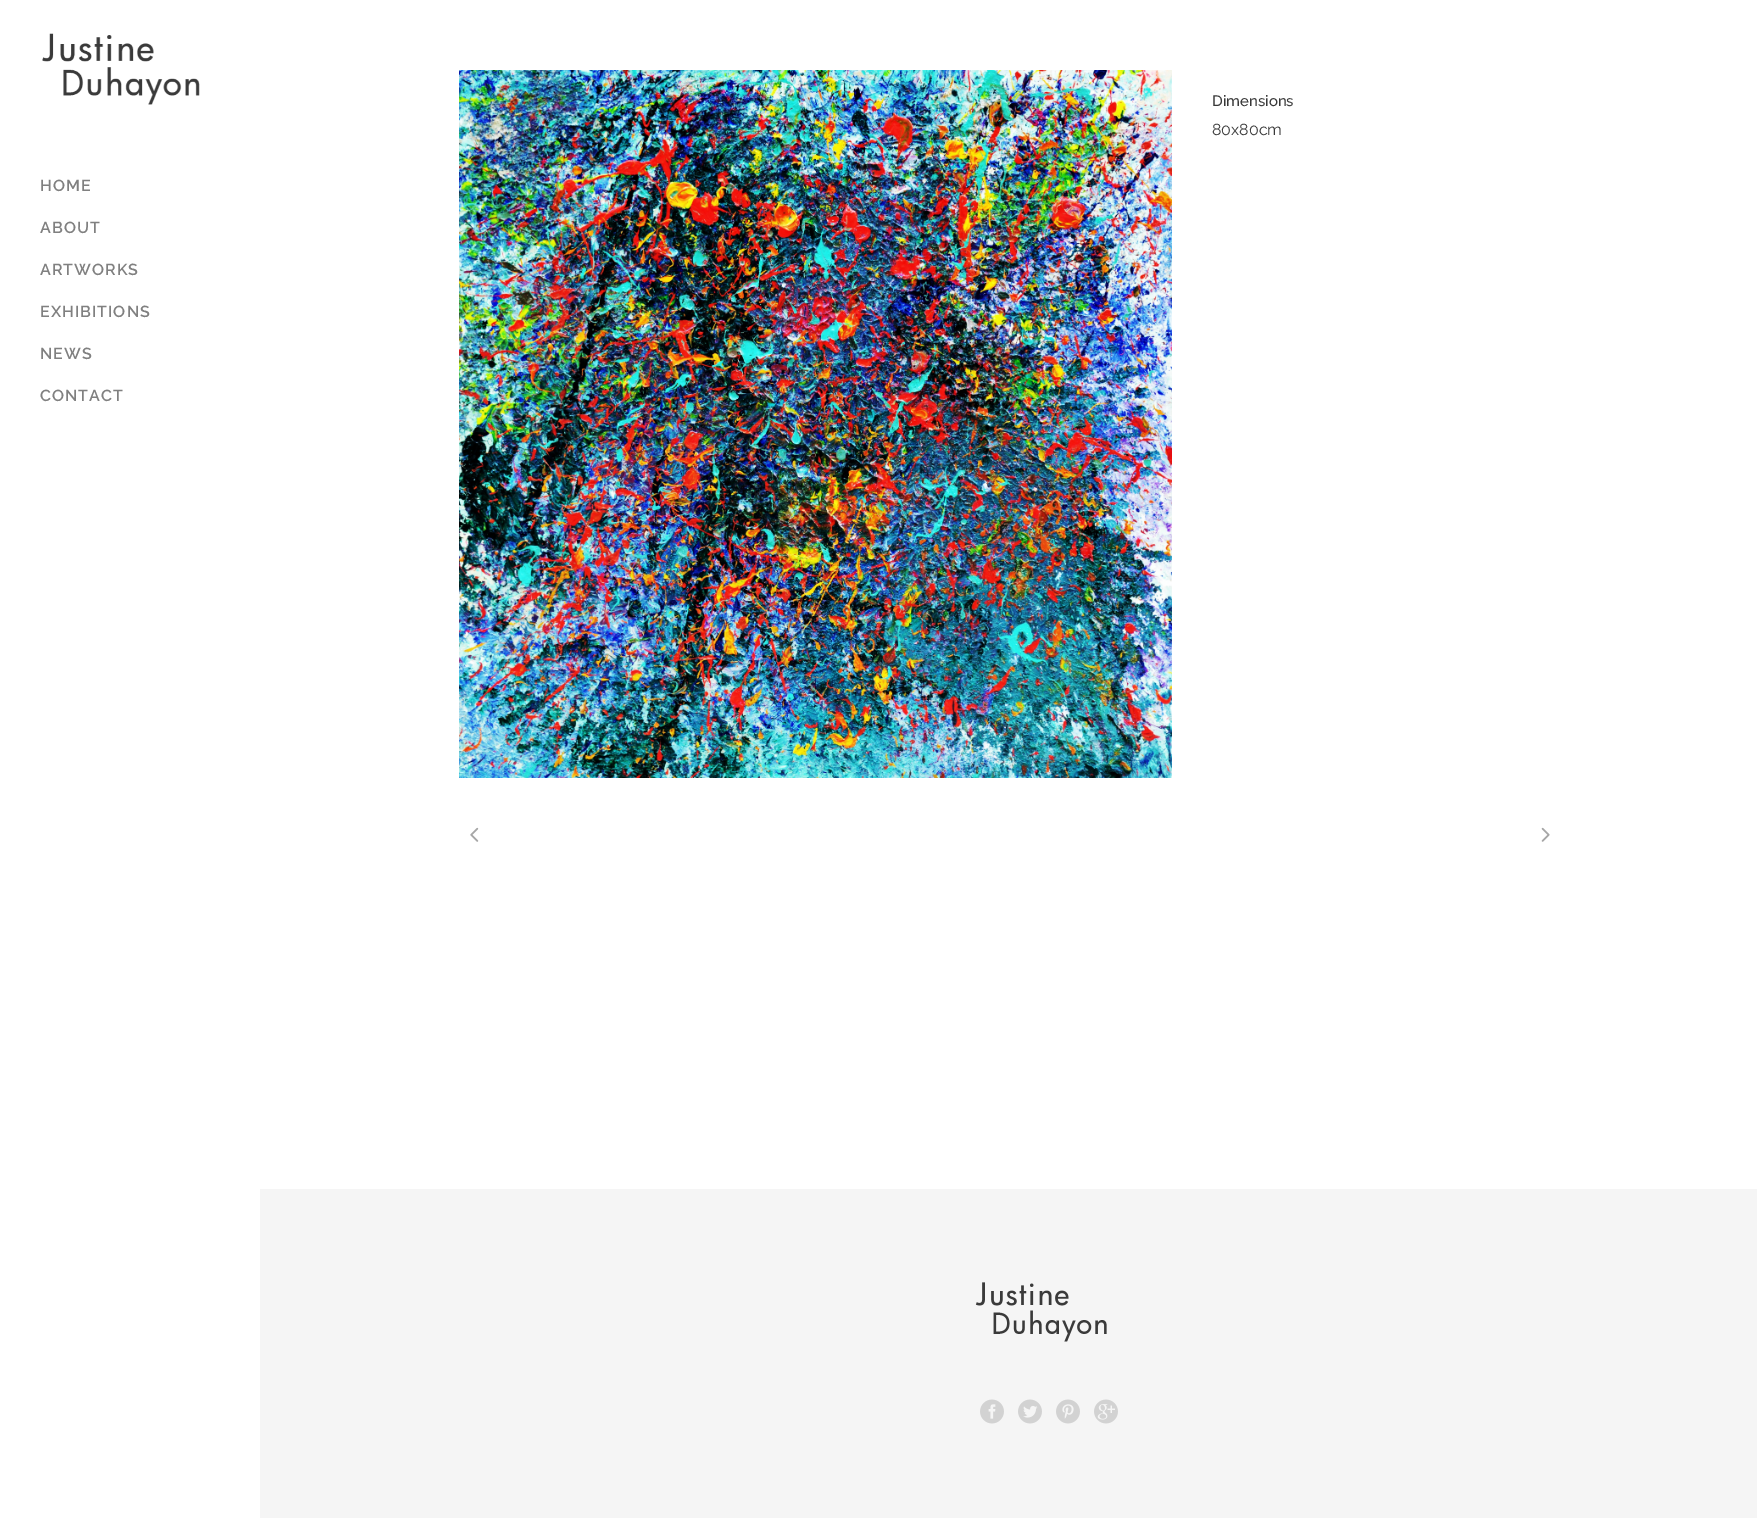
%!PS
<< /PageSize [1757 1518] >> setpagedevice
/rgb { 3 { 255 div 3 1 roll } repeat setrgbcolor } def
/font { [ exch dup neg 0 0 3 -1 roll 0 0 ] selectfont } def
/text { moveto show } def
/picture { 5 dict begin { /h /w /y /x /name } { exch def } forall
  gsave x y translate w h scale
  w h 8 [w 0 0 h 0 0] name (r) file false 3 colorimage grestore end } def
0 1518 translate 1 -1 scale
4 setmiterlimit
255 255 255 rgb
0 0 1757 1518 rectfill
(img_01.rgb) 459 70 713 708 picture
(img_02.rgb) 470 827 9 15 picture
(img_03.rgb) 1541 827 9 15 picture
(img_04.rgb) 42 33 158 72 picture
245 245 245 rgb
260 1189 1497 329 rectfill
(img_05.rgb) 975 1282 132 60 picture
(img_06.rgb) 980 1399 24 25 picture
(img_07.rgb) 1018 1399 24 25 picture
(img_08.rgb) 1056 1399 24 25 picture
(img_09.rgb) 1094 1399 24 25 picture
/Raleway-Medium 15 font
57 57 57 rgb
(Dimensions) 1212 106 text
/Raleway-Regular 16 font
(80x80cm) 1212 135 text
/Raleway-SemiBold 16 font
128 128 128 rgb
40 191 moveto 1 0 (HOME) ashow
40 233 moveto 1 0 (ABOUT) ashow
40 275 moveto 1 0 (ARTWORKS) ashow
40 317 moveto 1 0 (EXHIBITIONS) ashow
40 359 moveto 1 0 (NEWS) ashow
40 401 moveto 1 0 (CONTACT) ashow
showpage
